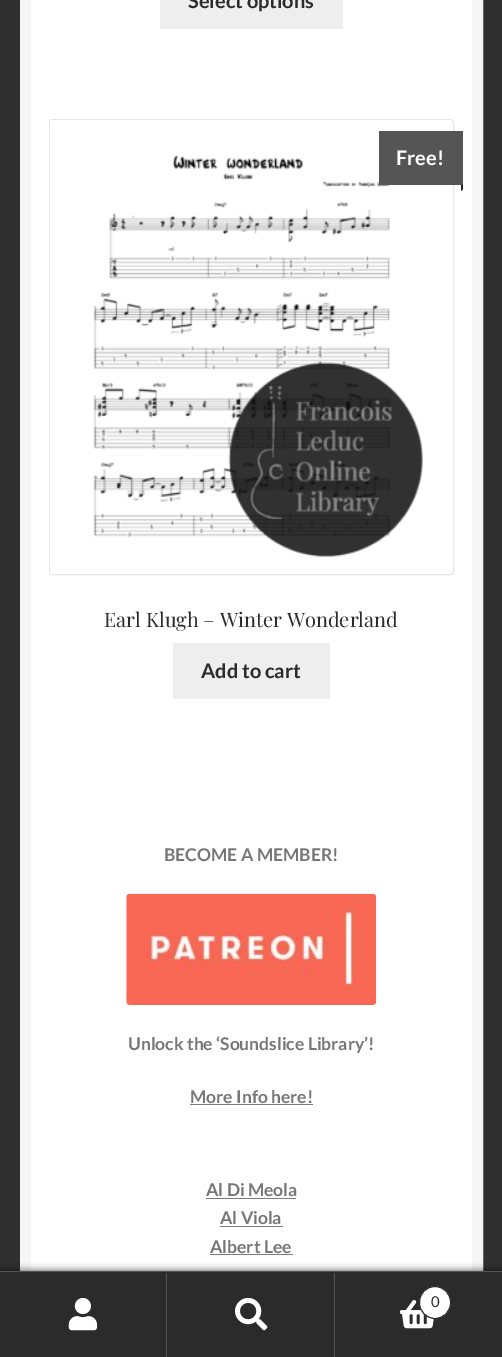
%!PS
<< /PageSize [502 1357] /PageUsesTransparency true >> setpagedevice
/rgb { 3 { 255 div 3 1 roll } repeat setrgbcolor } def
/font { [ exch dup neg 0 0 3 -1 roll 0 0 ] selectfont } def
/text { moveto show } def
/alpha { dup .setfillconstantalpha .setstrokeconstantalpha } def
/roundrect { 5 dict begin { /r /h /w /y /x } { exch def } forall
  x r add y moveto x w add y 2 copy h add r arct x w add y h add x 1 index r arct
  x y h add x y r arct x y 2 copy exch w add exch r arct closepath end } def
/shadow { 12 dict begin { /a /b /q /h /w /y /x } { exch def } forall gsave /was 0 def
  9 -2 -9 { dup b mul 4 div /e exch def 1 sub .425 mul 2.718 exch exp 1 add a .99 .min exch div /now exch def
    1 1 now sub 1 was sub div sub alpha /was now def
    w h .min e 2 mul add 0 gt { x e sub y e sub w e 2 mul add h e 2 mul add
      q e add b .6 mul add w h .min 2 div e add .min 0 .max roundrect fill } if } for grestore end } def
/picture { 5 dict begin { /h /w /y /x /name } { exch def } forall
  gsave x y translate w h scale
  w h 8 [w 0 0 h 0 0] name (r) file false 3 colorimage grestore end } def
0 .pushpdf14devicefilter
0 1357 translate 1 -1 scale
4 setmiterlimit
48 48 48 rgb
0 0 502 1357 rectfill
255 255 255 rgb
31 0 441 1271 rectfill
246 246 246 rgb
11 setlinewidth
25.5 -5.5 452 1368 rectstroke
238 238 238 rgb
160 0 183 29 rectfill
230 230 230 rgb
1 setlinewidth
49.5 119.5 404 455 3.5 roundrect stroke
(img_01.rgb) 50 120 402 454 picture
gsave
40 0 423 789 rectclip
85 85 85 rgb
385 131 moveto 76 0 rlineto 0 54 rlineto 7 0 rlineto 0 -54 rlineto closepath fill
grestore
85 85 85 rgb
379 131 82 54 rectfill
gsave
40 0 423 789 rectclip
34 34 34 rgb
461 185 moveto 6.5 0 rlineto -6.5 6 rlineto closepath fill
grestore
238 238 238 rgb
173 643 157 56 rectfill
(img_02.rgb) 126 893 251 112 picture
124 124 124 rgb
190 1104 123 1 rectfill
206 1198 90 1 rectfill
220 1226 63 1 rectfill
210 1254 83 1 rectfill
0 0 0 rgb
0 1271 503 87 0 4 0.7 shadow
43 43 43 rgb
0 1272 502 1 rectfill
85 85 85 rgb
0 1271 502 1 rectfill
43 43 43 rgb
0 1273 334 84 rectfill
85 85 85 rgb
166 1273 1 84 rectfill
(img_03.rgb) 68 1297 30 34 picture
334 1273 1 84 rectfill
(img_04.rgb) 235 1297 33 34 picture
43 43 43 rgb
335 1273 167 84 rectfill
(img_05.rgb) 400 1300 34 29 picture
255 255 255 rgb
419.5 1286.5 31 32 15.5 roundrect gsave fill grestore
43 43 43 rgb
stroke
/Lato-Bold 20 font
(Select options) 188 8 text
255 255 255 rgb
(Free!) 396 165 text
/PlayfairDisplay-Regular 20 font
43 43 43 rgb
(Earl Klugh – Winter Wonderland) 104 627 text
/Lato-Bold 20 font
(Add to cart) 201 678 text
/Lato-Bold 17.5 font
119 119 119 rgb
(BECOME A MEMBER!) 164 861 text
(Unlock the ‘Soundslice Library’!) 128 1050 text
(More Info here!) 190 1103 text
(Al Di Meola) 206 1196 text
(Al Viola) 220 1224 text
(Albert Lee) 210 1253 text
/Lato-Regular 15 font
43 43 43 rgb
(0) 431 1307 text
.poppdf14devicefilter showpage
